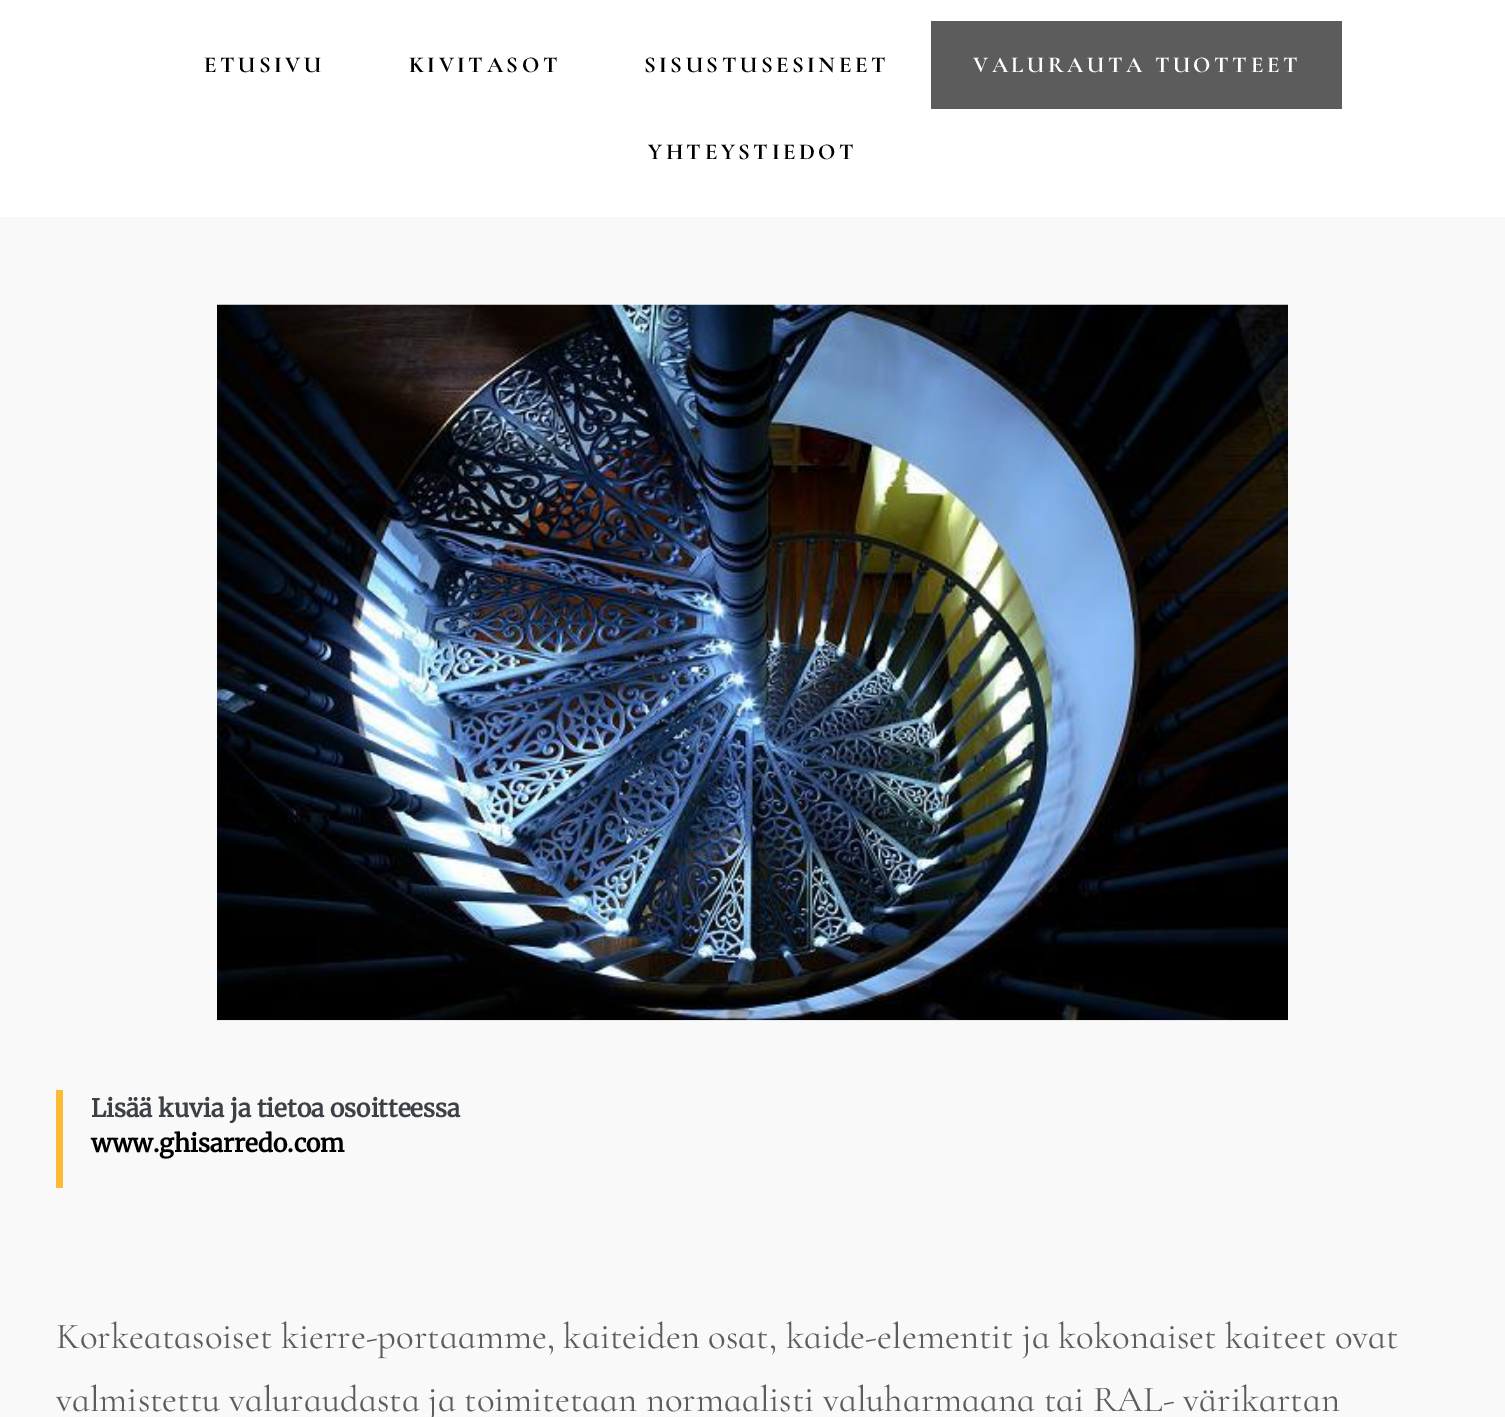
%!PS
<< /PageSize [1505 1417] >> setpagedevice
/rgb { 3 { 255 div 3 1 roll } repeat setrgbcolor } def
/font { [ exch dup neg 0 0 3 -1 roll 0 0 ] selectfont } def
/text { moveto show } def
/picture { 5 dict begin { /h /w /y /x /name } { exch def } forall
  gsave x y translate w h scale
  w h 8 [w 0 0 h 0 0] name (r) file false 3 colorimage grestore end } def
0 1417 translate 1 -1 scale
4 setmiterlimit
255 255 255 rgb
0 0 1505 1417 rectfill
92 92 92 rgb
931 21 411 88 rectfill
249 249 249 rgb
0 217 1505 1200 rectfill
(img_01.rgb) 217 304 1071 717 picture
252 186 53 rgb
56 1090 7 98 rectfill
/CormorantInfant-Bold 22.75 font
0 0 0 rgb
204 72 moveto 3.5 0 (ETUSIVU) ashow
409 72 moveto 3.5 0 (KIVITASOT) ashow
644 72 moveto 3.5 0 (SISUSTUSESINEET) ashow
255 255 255 rgb
973 72 moveto 3.5 0 (VALURAUTA TUOTTEET) ashow
0 0 0 rgb
648 159 moveto 3.5 0 (YHTEYSTIEDOT) ashow
/Merriweather-Bold 24.5 font
60 65 71 rgb
(Lisää kuvia ja tietoa osoitteessa) 91 1117 text
0 0 0 rgb
(www.ghisarredo.com) 91 1152 text
/CormorantInfant-Regular 36.75 font
92 92 92 rgb
(Korkeatasoiset kierre-portaamme, kaiteiden osat, kaide-elementit ja kokonaiset kaiteet ovat) 56 1348 text
(valmistettu valuraudasta ja toimitetaan normaalisti valuharmaana tai RAL- värikartan) 56 1411 text
showpage
